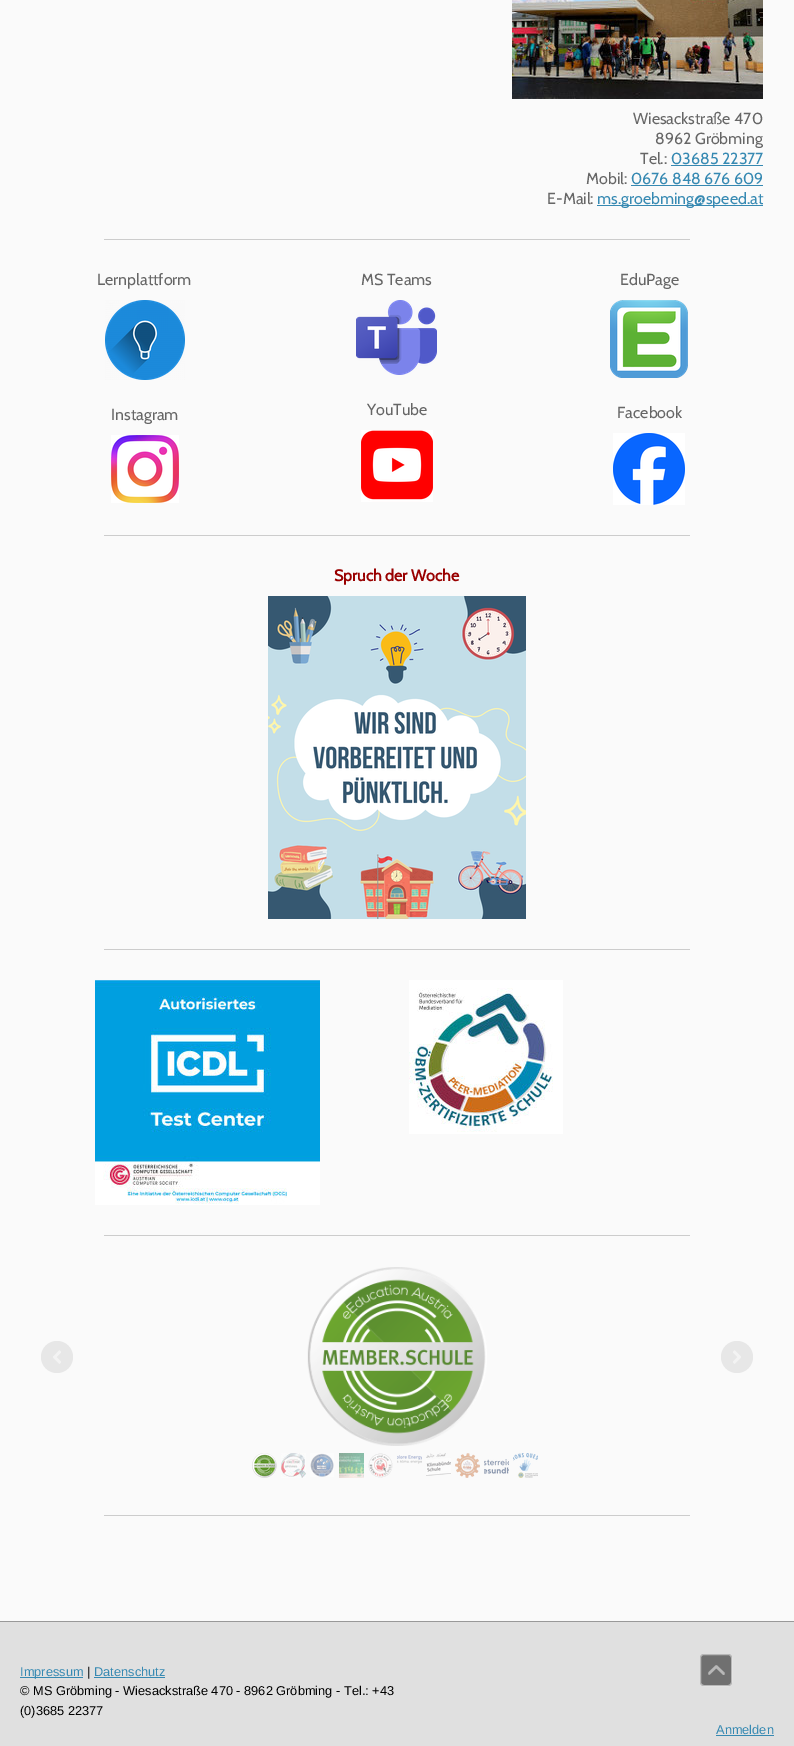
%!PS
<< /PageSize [794 1746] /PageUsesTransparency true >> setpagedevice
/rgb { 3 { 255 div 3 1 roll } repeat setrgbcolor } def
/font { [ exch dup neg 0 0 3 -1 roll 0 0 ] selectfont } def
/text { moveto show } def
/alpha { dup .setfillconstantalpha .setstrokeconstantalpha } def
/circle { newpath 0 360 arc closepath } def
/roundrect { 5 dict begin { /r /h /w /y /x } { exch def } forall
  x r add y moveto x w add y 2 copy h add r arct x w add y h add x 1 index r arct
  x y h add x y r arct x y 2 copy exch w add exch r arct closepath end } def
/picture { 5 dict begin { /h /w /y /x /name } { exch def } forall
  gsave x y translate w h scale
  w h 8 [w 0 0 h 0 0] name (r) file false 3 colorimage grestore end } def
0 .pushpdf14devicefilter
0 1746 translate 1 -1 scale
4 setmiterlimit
250 250 250 rgb
0 0 794 1746 rectfill
(img_01.rgb) 512 0 251 99 picture
54 137 178 rgb
671 165 92 1 rectfill
631 185 132 1 rectfill
597 205 166 1 rectfill
204 204 204 rgb
104 239 586 1 rectfill
(img_02.rgb) 105 300 80 80 picture
(img_03.rgb) 111 435 68 68 picture
(img_04.rgb) 356 300 81 75 picture
(img_05.rgb) 361 430 72 72 picture
(img_06.rgb) 610 300 78 78 picture
(img_07.rgb) 613 433 72 72 picture
104 535 586 1 rectfill
(img_08.rgb) 268 596 258 323 picture
104 949 586 1 rectfill
(img_09.rgb) 95 980 225 225 picture
(img_10.rgb) 409 980 154 154 picture
104 1235 586 1 rectfill
(img_11.rgb) 307 1267 180 179 picture
231 231 231 rgb
57 1357 16 circle fill
(img_12.rgb) 53 1350 8 14 picture
737 1357 16 circle fill
(img_13.rgb) 733 1350 8 14 picture
(img_14.rgb) 252 1453 25 25 picture
(img_15.rgb) 281 1453 25 25 picture
(img_16.rgb) 310 1453 24 24 picture
(img_17.rgb) 339 1453 25 25 picture
(img_18.rgb) 368 1453 25 25 picture
(img_19.rgb) 397 1455 25 9 picture
(img_20.rgb) 426 1453 25 23 picture
(img_21.rgb) 455 1453 25 25 picture
(img_22.rgb) 484 1459 25 15 picture
(img_23.rgb) 513 1453 25 25 picture
204 204 204 rgb
104 1515 586 1 rectfill
224 224 224 rgb
0 1622 794 124 rectfill
153 153 153 rgb
0 1621 794 1 rectfill
54 137 178 rgb
20 1677 63 1 rectfill
94 1677 71 1 rectfill
716 1735 58 1 rectfill
112 112 112 rgb
700 1654 32 32 4 roundrect fill
0.5 alpha
255 255 255 rgb
700.5 1654.5 31 31 3.5 roundrect stroke
1 alpha
(img_24.rgb) 708 1665 17 10 picture
/Cabin-Regular 16 font
102 102 102 rgb
(Wiesackstraße 470) 633 124 text
(8962 Gröbming) 655 144 text
(Tel.:) 640 164 text
54 137 178 rgb
(03685 22377) 671 164 text
102 102 102 rgb
(Mobil:) 586 184 text
54 137 178 rgb
(0676 848 676 609) 631 184 text
102 102 102 rgb
(E-Mail:) 547 204 text
54 137 178 rgb
(ms.groebming@speed.at) 597 204 text
102 102 102 rgb
(Lernplattform) 97 285 text
(Instagram) 111 420 text
(MS Teams) 361 285 text
(YouTube) 367 415 text
(EduPage) 620 285 text
(Facebook) 617 418 text
/Cabin-Bold 16 font
153 0 0 rgb
(Spruch der Woche) 334 581 text
/LiberationSans-Regular 12.8 font
54 137 178 rgb
(Impressum) 20 1676 text
0 0 0 rgb
(|) 87 1676 text
54 137 178 rgb
(Datenschutz) 94 1676 text
0 0 0 rgb
(© MS Gröbming - Wiesackstraße 470 - 8962 Gröbming - Tel.: +43) 20 1695 text
(\(0\)3685 22377) 20 1715 text
54 137 178 rgb
(Anmelden) 716 1734 text
.poppdf14devicefilter showpage
